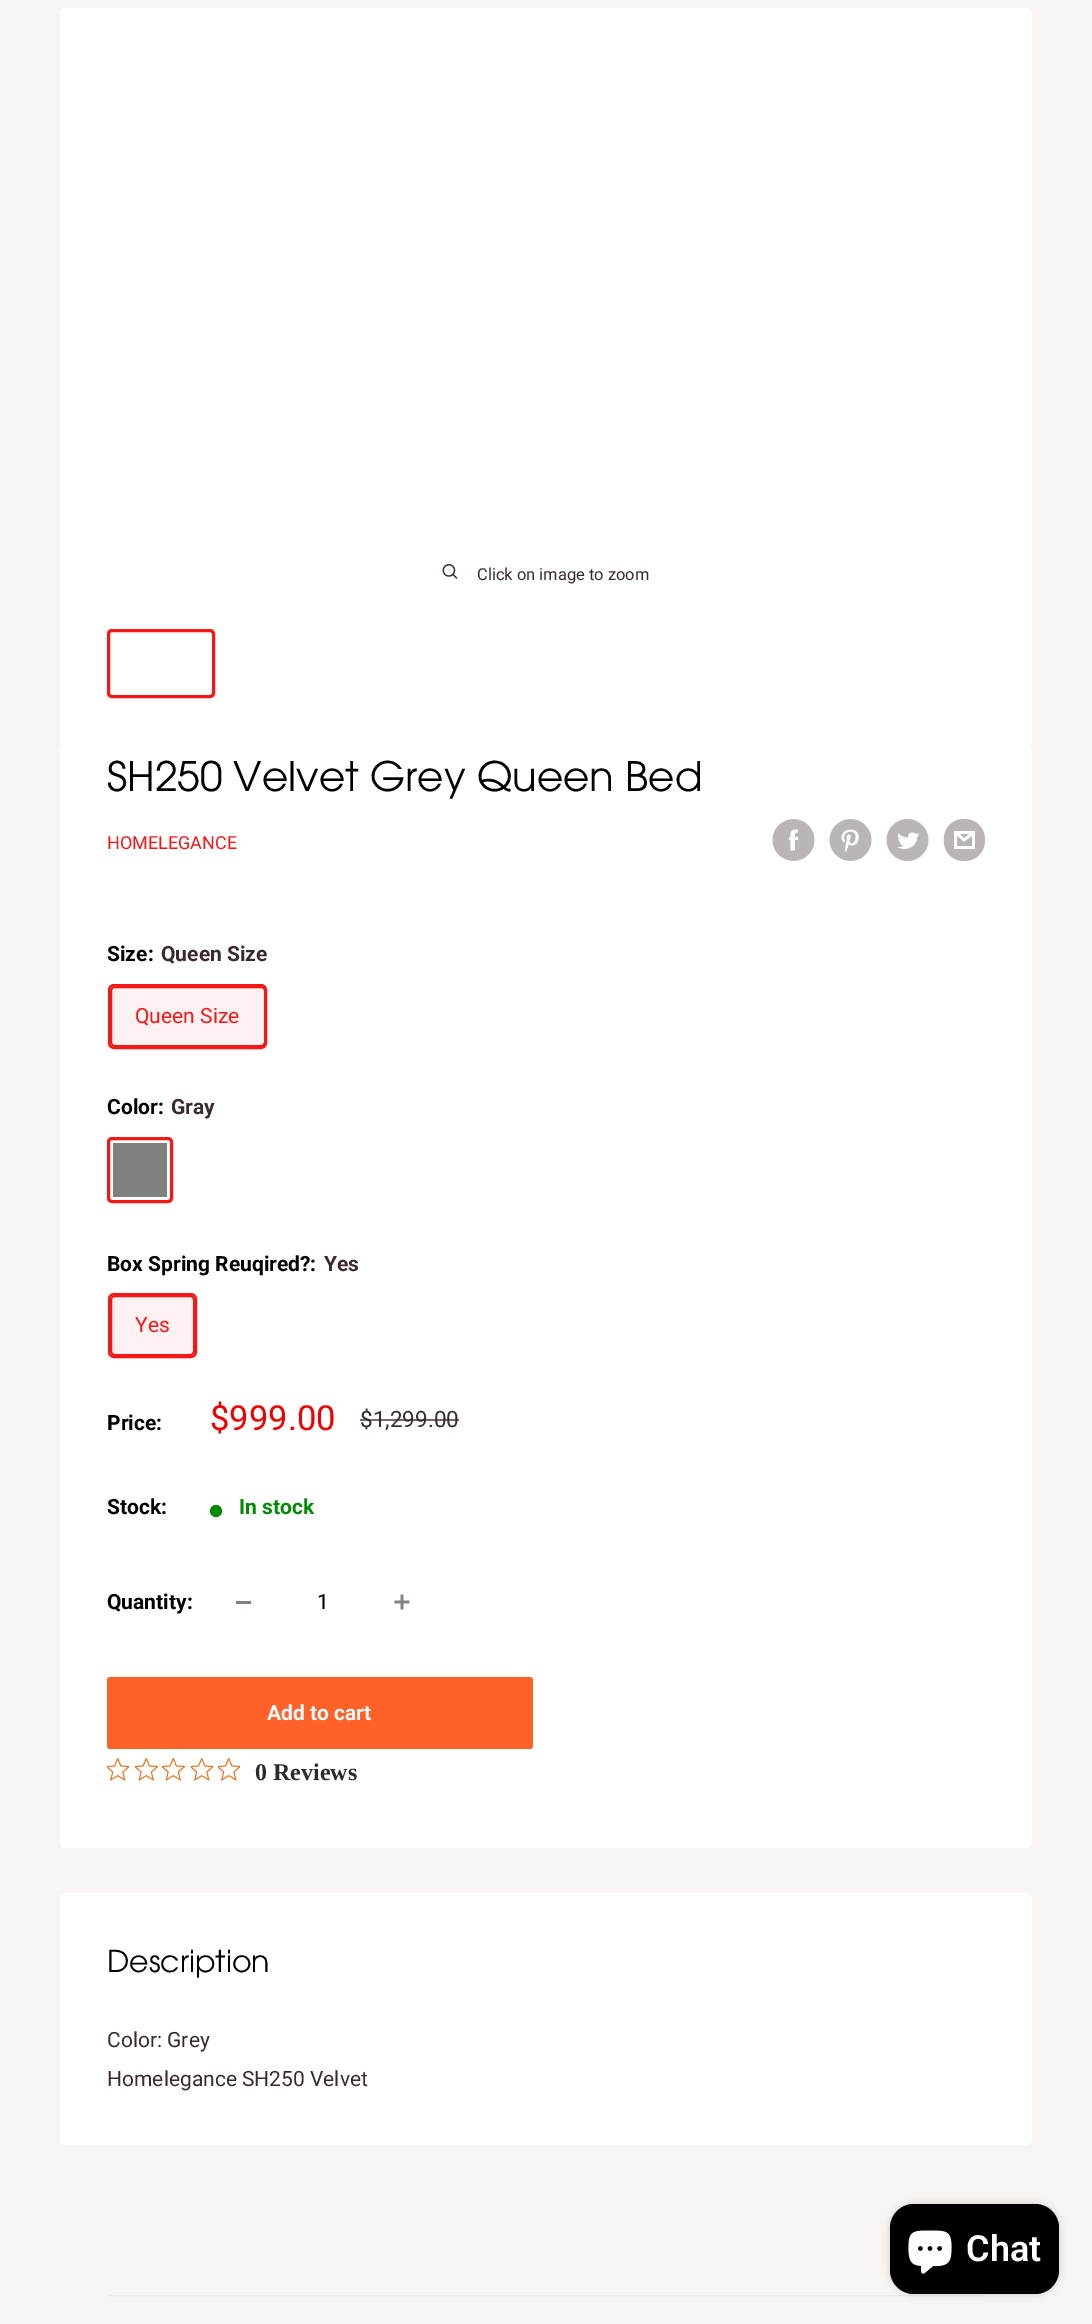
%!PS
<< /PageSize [1092 2324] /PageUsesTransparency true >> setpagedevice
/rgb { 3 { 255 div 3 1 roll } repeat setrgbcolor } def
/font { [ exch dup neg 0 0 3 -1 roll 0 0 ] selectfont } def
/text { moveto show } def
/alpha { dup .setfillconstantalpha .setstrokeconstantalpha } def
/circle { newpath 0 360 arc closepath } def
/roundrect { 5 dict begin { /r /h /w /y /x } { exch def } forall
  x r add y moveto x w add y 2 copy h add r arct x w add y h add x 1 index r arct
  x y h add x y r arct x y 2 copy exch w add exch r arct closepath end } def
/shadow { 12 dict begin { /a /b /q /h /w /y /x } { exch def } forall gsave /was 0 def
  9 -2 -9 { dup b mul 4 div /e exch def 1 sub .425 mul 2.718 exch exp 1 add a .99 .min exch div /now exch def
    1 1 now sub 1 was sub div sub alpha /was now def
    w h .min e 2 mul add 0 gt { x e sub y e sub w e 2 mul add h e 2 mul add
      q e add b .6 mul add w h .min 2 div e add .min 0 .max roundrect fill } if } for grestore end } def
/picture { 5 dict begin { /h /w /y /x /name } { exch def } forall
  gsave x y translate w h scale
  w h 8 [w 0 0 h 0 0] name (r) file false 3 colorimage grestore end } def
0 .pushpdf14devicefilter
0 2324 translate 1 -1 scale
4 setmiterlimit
247 244 242 rgb
0 0 1092 2324 rectfill
255 255 255 rgb
61 9 970 737 4 roundrect gsave fill grestore
2 setlinewidth
stroke
(img_01.rgb) 442 564 16 15 picture
244 23 23 rgb
3 setlinewidth
108.5 630.5 105 66 3.5 roundrect stroke
255 255 255 rgb
65 746 moveto -3 0 -5 3 -5 6 rcurveto 0 -3 2 -5 4 -5 rcurveto 964 0 rlineto 2 0 4 2 4 5 rcurveto 0 -3 -2 -6 -5 -6 rcurveto closepath fill
60 747 972 1101 5 roundrect fill
64 747 moveto 964 0 rlineto 2 0 4 2 4 5 rcurveto 0 1092 rlineto 0 2 -2 4 -4 4 rcurveto -964 0 rlineto -2 0 -4 -2 -4 -4 rcurveto 0 -1092 rlineto 0 -3 2 -5 4 -5 rcurveto closepath 64 747 moveto 964 0 rlineto 1 0 2 2 2 5 rcurveto 0 1092 rlineto 0 1 -1 2 -2 2 rcurveto -964 0 rlineto -1 0 -2 -1 -2 -2 rcurveto 0 -1092 rlineto 0 -3 1 -5 2 -5 rcurveto closepath eofill
(img_02.rgb) 772 819 43 42 picture
(img_03.rgb) 829 819 43 42 picture
(img_04.rgb) 886 819 43 42 picture
186 180 182 rgb
964 861 moveto -27 0 -27 -42 0 -42 rcurveto 28 0 28 42 0 42 rcurveto closepath 960 834 moveto 9 0 rlineto -5 4 rlineto closepath 972 836 moveto 0 10 rlineto -15 0 rlineto 0 -10 rlineto 7 6 rlineto closepath 975 831 moveto -21 0 rlineto 0 18 rlineto 21 0 rlineto closepath fill
244 23 23 rgb
2 setlinewidth
109 985 157 63 5 roundrect stroke
0.06 alpha
110 986 156 61 rectfill
1 alpha
111 987 154 59 4 roundrect stroke
128 128 128 rgb
113 1143 54 54 rectfill
244 23 23 rgb
3 setlinewidth
108.5 1138.5 63 63 3.5 roundrect stroke
2 setlinewidth
109 1294 87 63 5 roundrect stroke
0.06 alpha
110 1295 85 61 rectfill
1 alpha
111 1296 83 59 4 roundrect stroke
0 138 0 rgb
216 1511 6 circle fill
137 127 130 rgb
236 1601 15 3 rectfill
(img_05.rgb) 394 1594 16 16 picture
255 97 40 rgb
107 1677 426 72 3 roundrect fill
(img_06.rgb) 107 1758 22 23 picture
(img_07.rgb) 135 1758 23 23 picture
(img_07.rgb) 162 1758 23 23 picture
(img_06.rgb) 191 1758 22 23 picture
(img_06.rgb) 218 1758 22 23 picture
255 255 255 rgb
61 1894 970 250 4 roundrect gsave fill grestore
stroke
(img_08.rgb) 108 2295 876 2 picture
0 0 0 rgb
890 2204 169 90 24 4 0.15 shadow
890 2204 169 90 24 roundrect fill
(img_09.rgb) 908 2230 44 44 picture
/Roboto-Regular 16.5 font
58 42 47 rgb
(Click on image to zoom) 477 580 text
/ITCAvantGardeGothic-Regular 40.5 font
0 0 0 rgb
(SH250 Velvet Grey Queen Bed) 107 791 text
/Roboto-Regular 18 font
244 23 23 rgb
(HOMELEGANCE) 107 849 text
/Roboto-Bold 21 font
0 0 0 rgb
(Size:) 107 961 text
58 42 47 rgb
(Queen Size) 161 961 text
/Roboto-Regular 21 font
244 23 23 rgb
(Queen Size) 135 1023 text
/Roboto-Bold 21 font
0 0 0 rgb
(Color:) 107 1114 text
58 42 47 rgb
(Gray) 171 1114 text
0 0 0 rgb
(Box Spring Reuqired?:) 107 1271 text
58 42 47 rgb
(Yes) 324 1271 text
/Roboto-Regular 21 font
244 23 23 rgb
(Yes) 135 1332 text
/Roboto-Bold 21 font
0 0 0 rgb
(Price:) 107 1430 text
/Roboto-Regular 34.5 font
238 0 0 rgb
($999.00) 210 1430 text
/Roboto-Regular 22.5 font
58 42 47 rgb
($1,299.00) 360 1427 text
0.7 alpha
360 1419 99 2 rectfill
/Roboto-Bold 21 font
1 alpha
0 0 0 rgb
(Stock:) 107 1514 text
0 138 0 rgb
(In stock) 239 1514 text
0 0 0 rgb
(Quantity:) 107 1609 text
/Roboto-Regular 21 font
(1) 317 1609 text
/Roboto-Bold 21 font
255 255 255 rgb
(Add to cart) 267 1720 text
/LiberationSerif-Bold 24 font
44 44 44 rgb
(0 Reviews) 255 1780 text
/ITCAvantGardeGothic-Regular 30 font
0 0 0 rgb
(Description) 107 1972 text
/Roboto-Regular 21 font
58 42 47 rgb
(Color: Grey) 107 2047 text
(Homelegance SH250 Velvet) 107 2086 text
/Roboto-SemiBold 36 font
255 255 255 rgb
(Chat) 966 2261 text
.poppdf14devicefilter showpage
